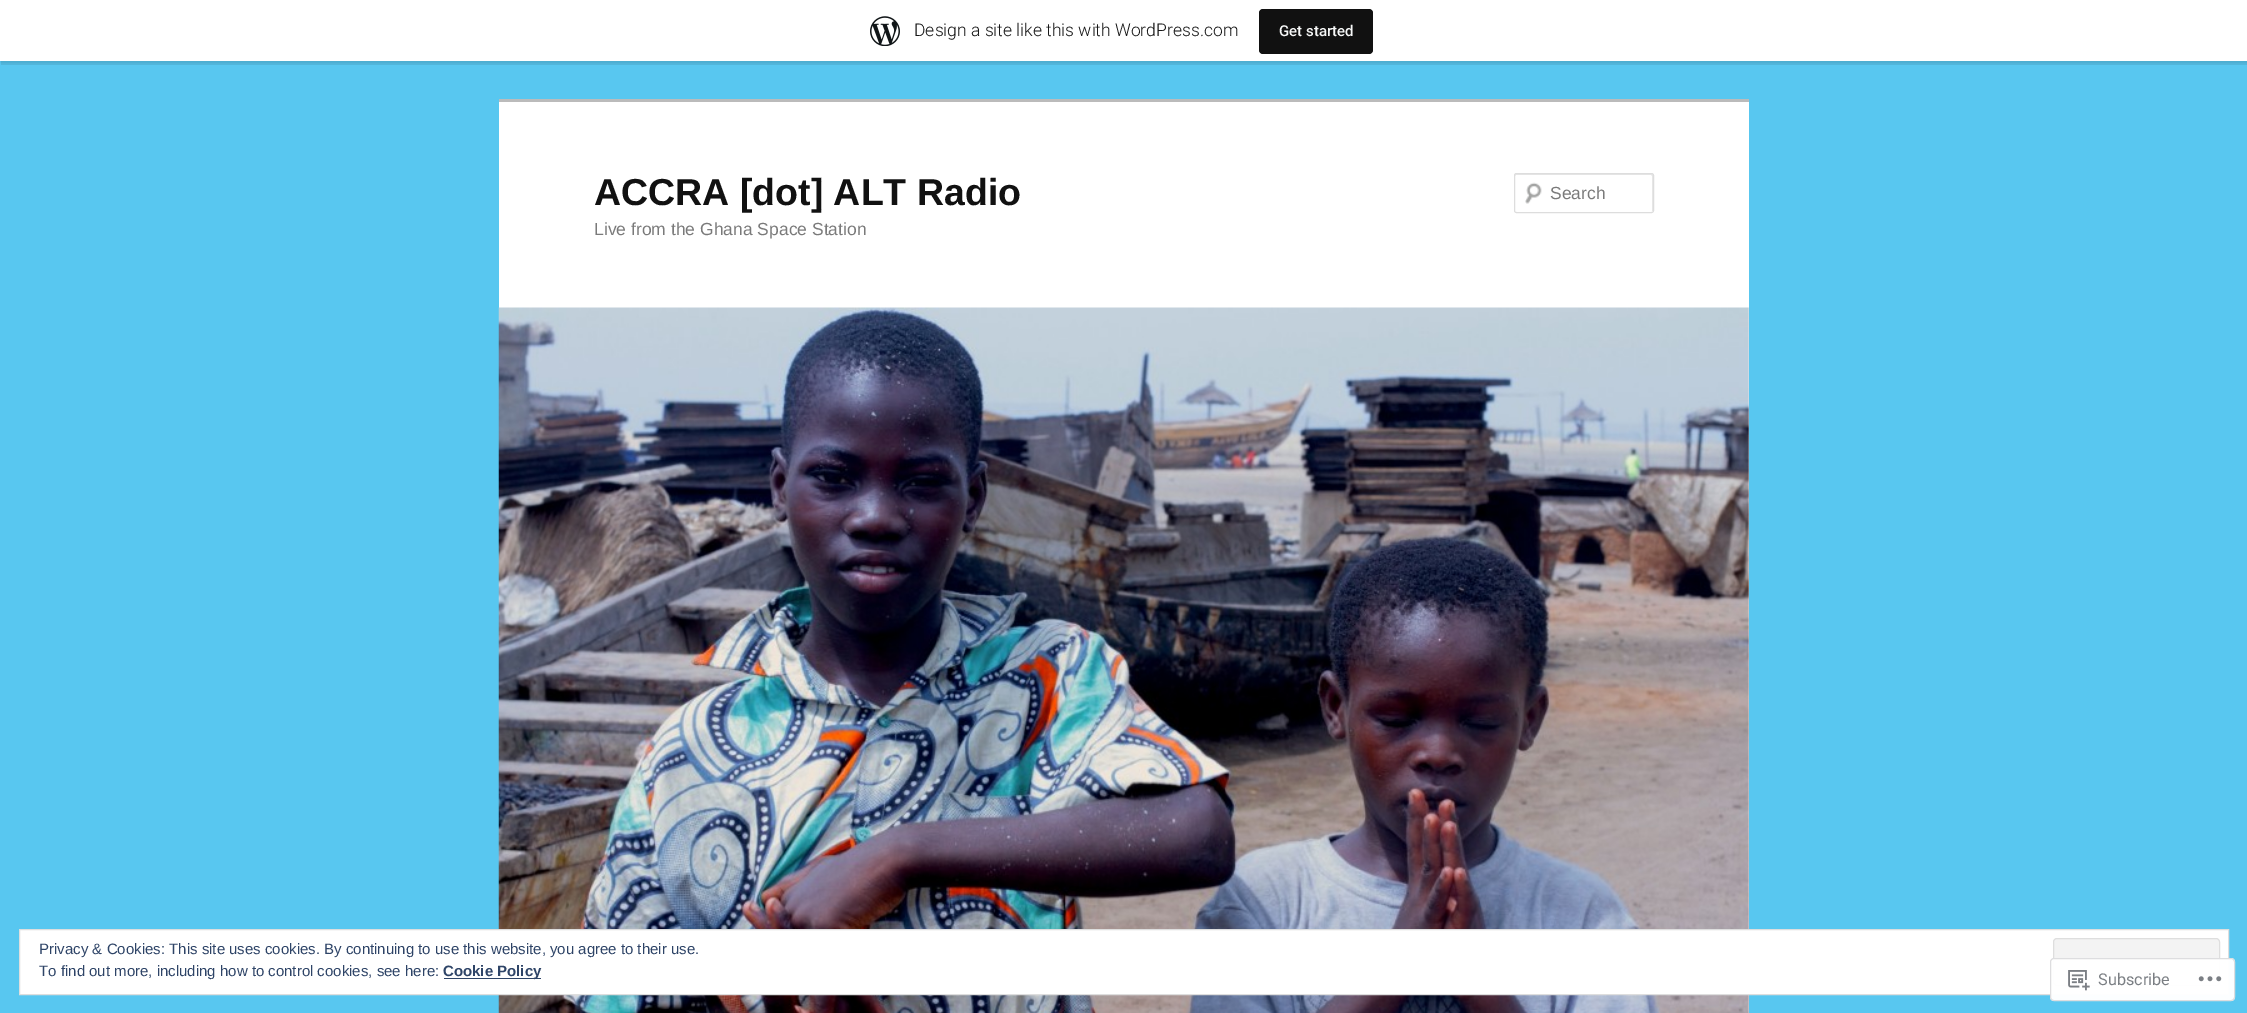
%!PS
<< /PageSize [2247 1013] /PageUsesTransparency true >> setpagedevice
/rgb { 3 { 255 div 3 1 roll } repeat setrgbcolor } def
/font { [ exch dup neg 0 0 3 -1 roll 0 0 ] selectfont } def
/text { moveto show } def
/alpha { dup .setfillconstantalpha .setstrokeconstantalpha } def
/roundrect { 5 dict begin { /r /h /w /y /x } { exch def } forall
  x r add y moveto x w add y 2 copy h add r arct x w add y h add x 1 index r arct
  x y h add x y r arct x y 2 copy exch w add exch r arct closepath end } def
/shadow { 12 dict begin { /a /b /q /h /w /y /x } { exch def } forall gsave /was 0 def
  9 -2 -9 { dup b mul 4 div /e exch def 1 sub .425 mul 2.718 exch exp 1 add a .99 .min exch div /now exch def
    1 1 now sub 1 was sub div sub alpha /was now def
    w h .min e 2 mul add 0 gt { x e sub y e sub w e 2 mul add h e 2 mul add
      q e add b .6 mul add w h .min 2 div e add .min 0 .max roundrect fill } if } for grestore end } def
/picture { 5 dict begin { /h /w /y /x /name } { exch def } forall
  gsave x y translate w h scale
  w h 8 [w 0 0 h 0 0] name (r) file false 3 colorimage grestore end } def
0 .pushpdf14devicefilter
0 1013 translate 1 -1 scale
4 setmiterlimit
88 199 240 rgb
0 0 2247 1013 rectfill
0 0 0 rgb
0 1 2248 62 0 1 0.05 shadow
0.08 alpha
1 61 moveto 0 4 rlineto 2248 0 rlineto 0 -61 rlineto -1 0 rlineto 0 57 rlineto closepath fill
1 alpha
255 255 255 rgb
0 0 2247 61 rectfill
(img_01.rgb) 870 16 30 30 picture
17 17 17 rgb
1259 9 114 45 4 roundrect fill
255 255 255 rgb
499 102 1250 911 rectfill
187 187 187 rgb
499 99 1250 3 rectfill
(img_02.rgb) 1525 182 17 22 picture
230 230 230 rgb
1516 175 moveto 135 0 rlineto 1 0 1 1 1 1 rcurveto 0 35 rlineto 1 0 1 0 1 -1 rcurveto 0 -35 rlineto 0 -1 0 -1 -1 -1 rcurveto -136 0 rlineto -1 0 -1 0 -1 1 rcurveto 0 1 rlineto closepath fill
221 221 221 rgb
1514.5 173.5 139 39 2 roundrect stroke
(img_03.rgb) 498 307 1251 706 picture
255 255 255 rgb
19.5 929.5 moveto 2209 0 rlineto 0 65 rlineto -2209 0 rlineto closepath gsave fill grestore
222 222 222 rgb
stroke
243 243 243 rgb
2053.5 938.5 166 47 3.5 roundrect gsave fill grestore
222 222 222 rgb
stroke
46 68 103 rgb
444 978 97 1 rectfill
0.98 alpha
255 255 255 rgb
2050 958 185 43 4 roundrect fill
220 220 222 rgb
2050.5 958.5 184 42 3.5 roundrect stroke
1 alpha
(img_04.rgb) 2068 970 22 21 picture
(img_05.rgb) 2198 976 24 6 picture
/Roboto-Light 17.5 font
23 23 23 rgb
(Design a site like this with WordPress.com) 914 36 text
/Roboto-Medium 15 font
246 247 247 rgb
(Get started) 1279 36 text
/LiberationSans-Bold 37.5 font
17 17 17 rgb
(ACCRA [dot] ALT Radio) 594 205 text
/LiberationSans-Regular 17.5 font
122 122 122 rgb
(Live from the Ghana Space Station) 594 235 text
(Search) 1550 199 text
/LiberationSans-Regular 15 font
46 68 103 rgb
(Privacy & Cookies: This site uses cookies. By continuing to use this website, you agree to their use.) 39 954 text
(To find out more, including how to control cookies, see here:) 39 976 text
/LiberationSans-Bold 15 font
(Cookie Policy) 443 976 text
/Roboto-Regular 16.25 font
123 127 132 rgb
(Subscribe) 2098 985 text
.poppdf14devicefilter showpage
